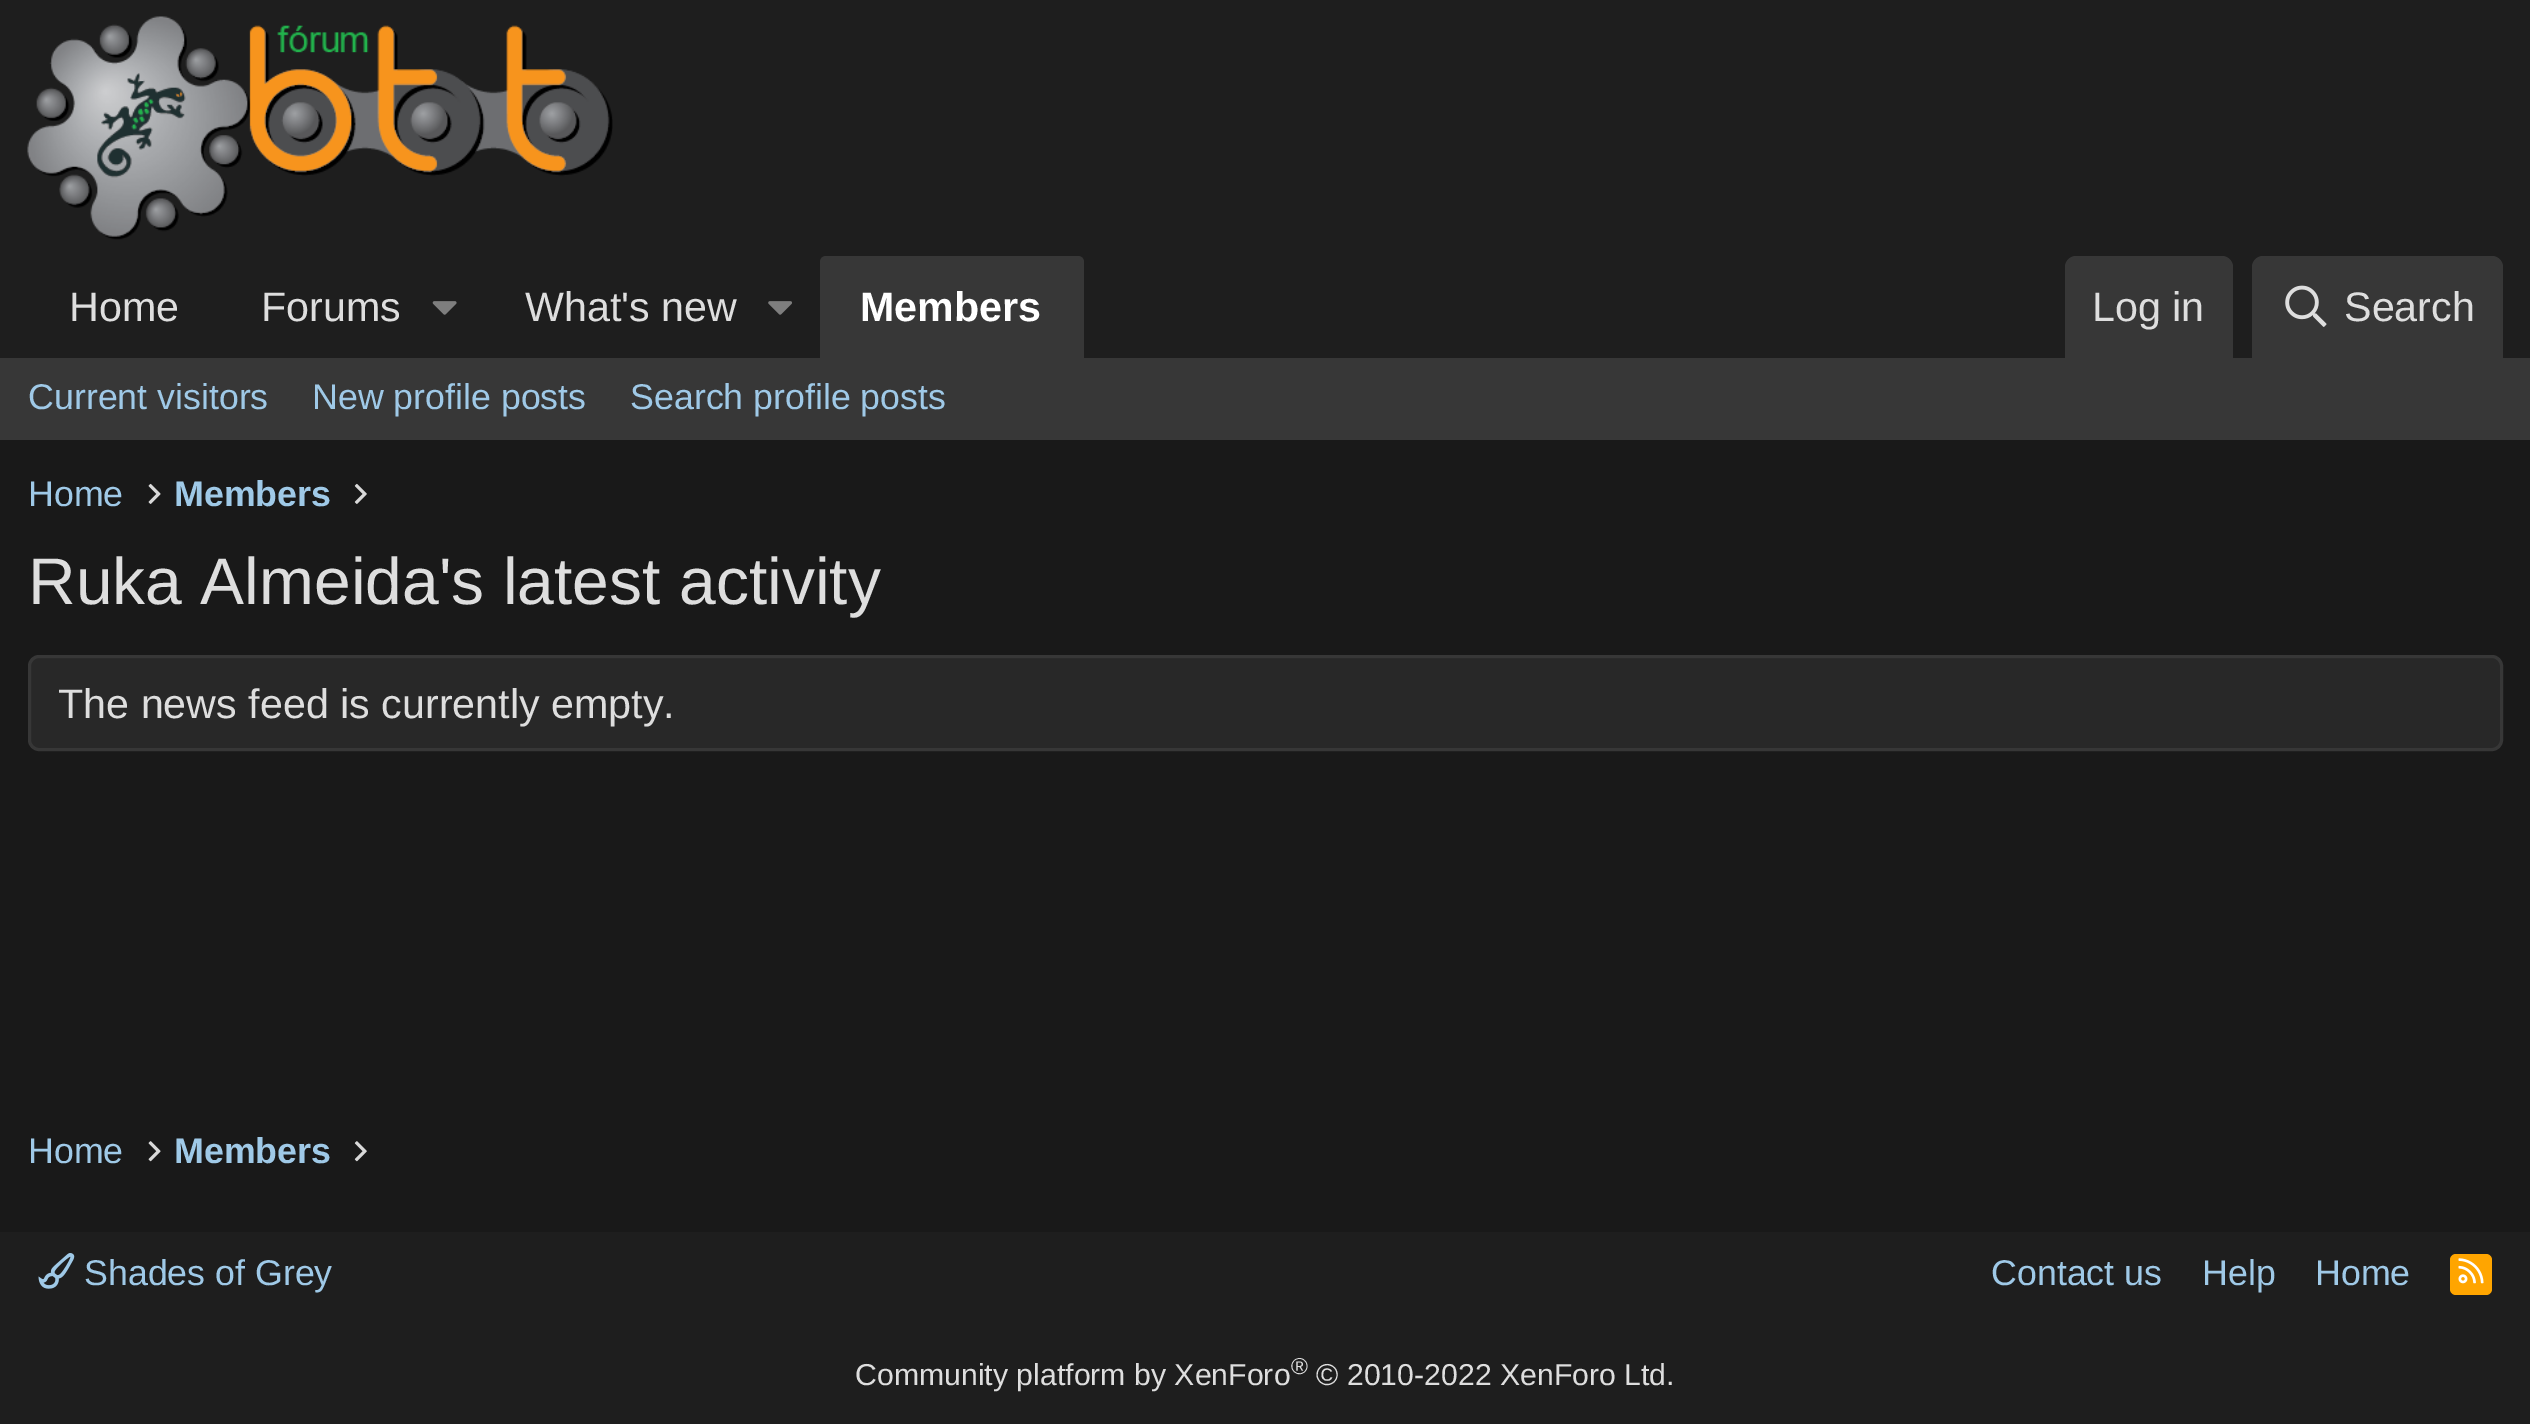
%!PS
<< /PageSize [2530 1424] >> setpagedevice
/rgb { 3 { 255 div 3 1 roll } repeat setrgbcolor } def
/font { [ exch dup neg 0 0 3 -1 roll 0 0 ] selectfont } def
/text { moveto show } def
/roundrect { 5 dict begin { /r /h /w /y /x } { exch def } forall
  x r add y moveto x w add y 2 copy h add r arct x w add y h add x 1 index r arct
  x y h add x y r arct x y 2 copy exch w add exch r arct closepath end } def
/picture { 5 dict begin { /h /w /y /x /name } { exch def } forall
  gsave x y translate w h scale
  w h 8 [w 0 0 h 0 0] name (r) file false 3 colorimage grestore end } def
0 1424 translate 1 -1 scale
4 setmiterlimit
25 25 25 rgb
0 0 2530 1424 rectfill
30 30 30 rgb
0 0 2530 358 rectfill
(img_01.rgb) 27 16 586 224 picture
(img_02.rgb) 432 301 25 14 picture
(img_03.rgb) 768 301 24 14 picture
55 55 55 rgb
826 256 moveto 252 0 rlineto 3.5 0 6 2.5 6 6 rcurveto 0 96 rlineto -264 0 rlineto 0 -96 rlineto 0 -3.5 2.5 -6 6 -6 rcurveto closepath fill
2076 256 moveto 146 0 rlineto 6 0 11 5 11 11 rcurveto 0 91 rlineto -168 0 rlineto 0 -91 rlineto 0 -6 5 -11 11 -11 rcurveto closepath fill
2263 256 moveto 229 0 rlineto 6 0 11 5 11 11 rcurveto 0 91 rlineto -251 0 rlineto 0 -91 rlineto 0 -6 5 -11 11 -11 rcurveto closepath fill
(img_04.rgb) 2285 285 42 42 picture
0 358 2530 82 rectfill
(img_05.rgb) 148 483 13 21 picture
(img_06.rgb) 354 483 13 21 picture
40 40 40 rgb
29.5 656.5 2472 93 9.5 roundrect gsave fill grestore
55 55 55 rgb
3 setlinewidth
stroke
(img_07.rgb) 148 1141 13 21 picture
(img_08.rgb) 354 1141 13 21 picture
30 30 30 rgb
0 1232 2530 192 rectfill
(img_09.rgb) 38 1253 37 36 picture
255 165 0 rgb
2450 1254 42 41 6 roundrect fill
(img_10.rgb) 2458 1258 26 26 picture
/LiberationSans-Regular 41.25 font
222 222 222 rgb
(Home) 69 321 text
(Forums) 261 321 text
(What's new) 525 321 text
/LiberationSans-Bold 41.25 font
255 255 255 rgb
(Members) 860 321 text
/LiberationSans-Regular 41.25 font
222 222 222 rgb
(Log in) 2092 321 text
(Search) 2344 321 text
/LiberationSans-Regular 35.75 font
159 201 231 rgb
(Current visitors) 28 409 text
(New profile posts) 312 409 text
(Search profile posts) 630 409 text
(Home) 28 506 text
/LiberationSans-Bold 35.75 font
(Members) 174 506 text
/LiberationSans-Regular 66 font
222 222 222 rgb
(Ruka Almeida's latest activity) 28 604 text
/LiberationSans-Regular 41.25 font
(The news feed is currently empty.) 58 718 text
/LiberationSans-Regular 35.75 font
159 201 231 rgb
(Home) 28 1163 text
/LiberationSans-Bold 35.75 font
(Members) 174 1163 text
/LiberationSans-Regular 35.75 font
(Shades of Grey) 84 1285 text
(Contact us) 1991 1285 text
(Help) 2202 1285 text
(Home) 2315 1285 text
/LiberationSans-Regular 30.25 font
222 222 222 rgb
(Community platform by XenForo) 855 1385 text
/LiberationSans-Regular 23 font
(®) 1291 1374 text
/LiberationSans-Regular 30.25 font
(© 2010-2022 XenForo Ltd.) 1316 1385 text
showpage
